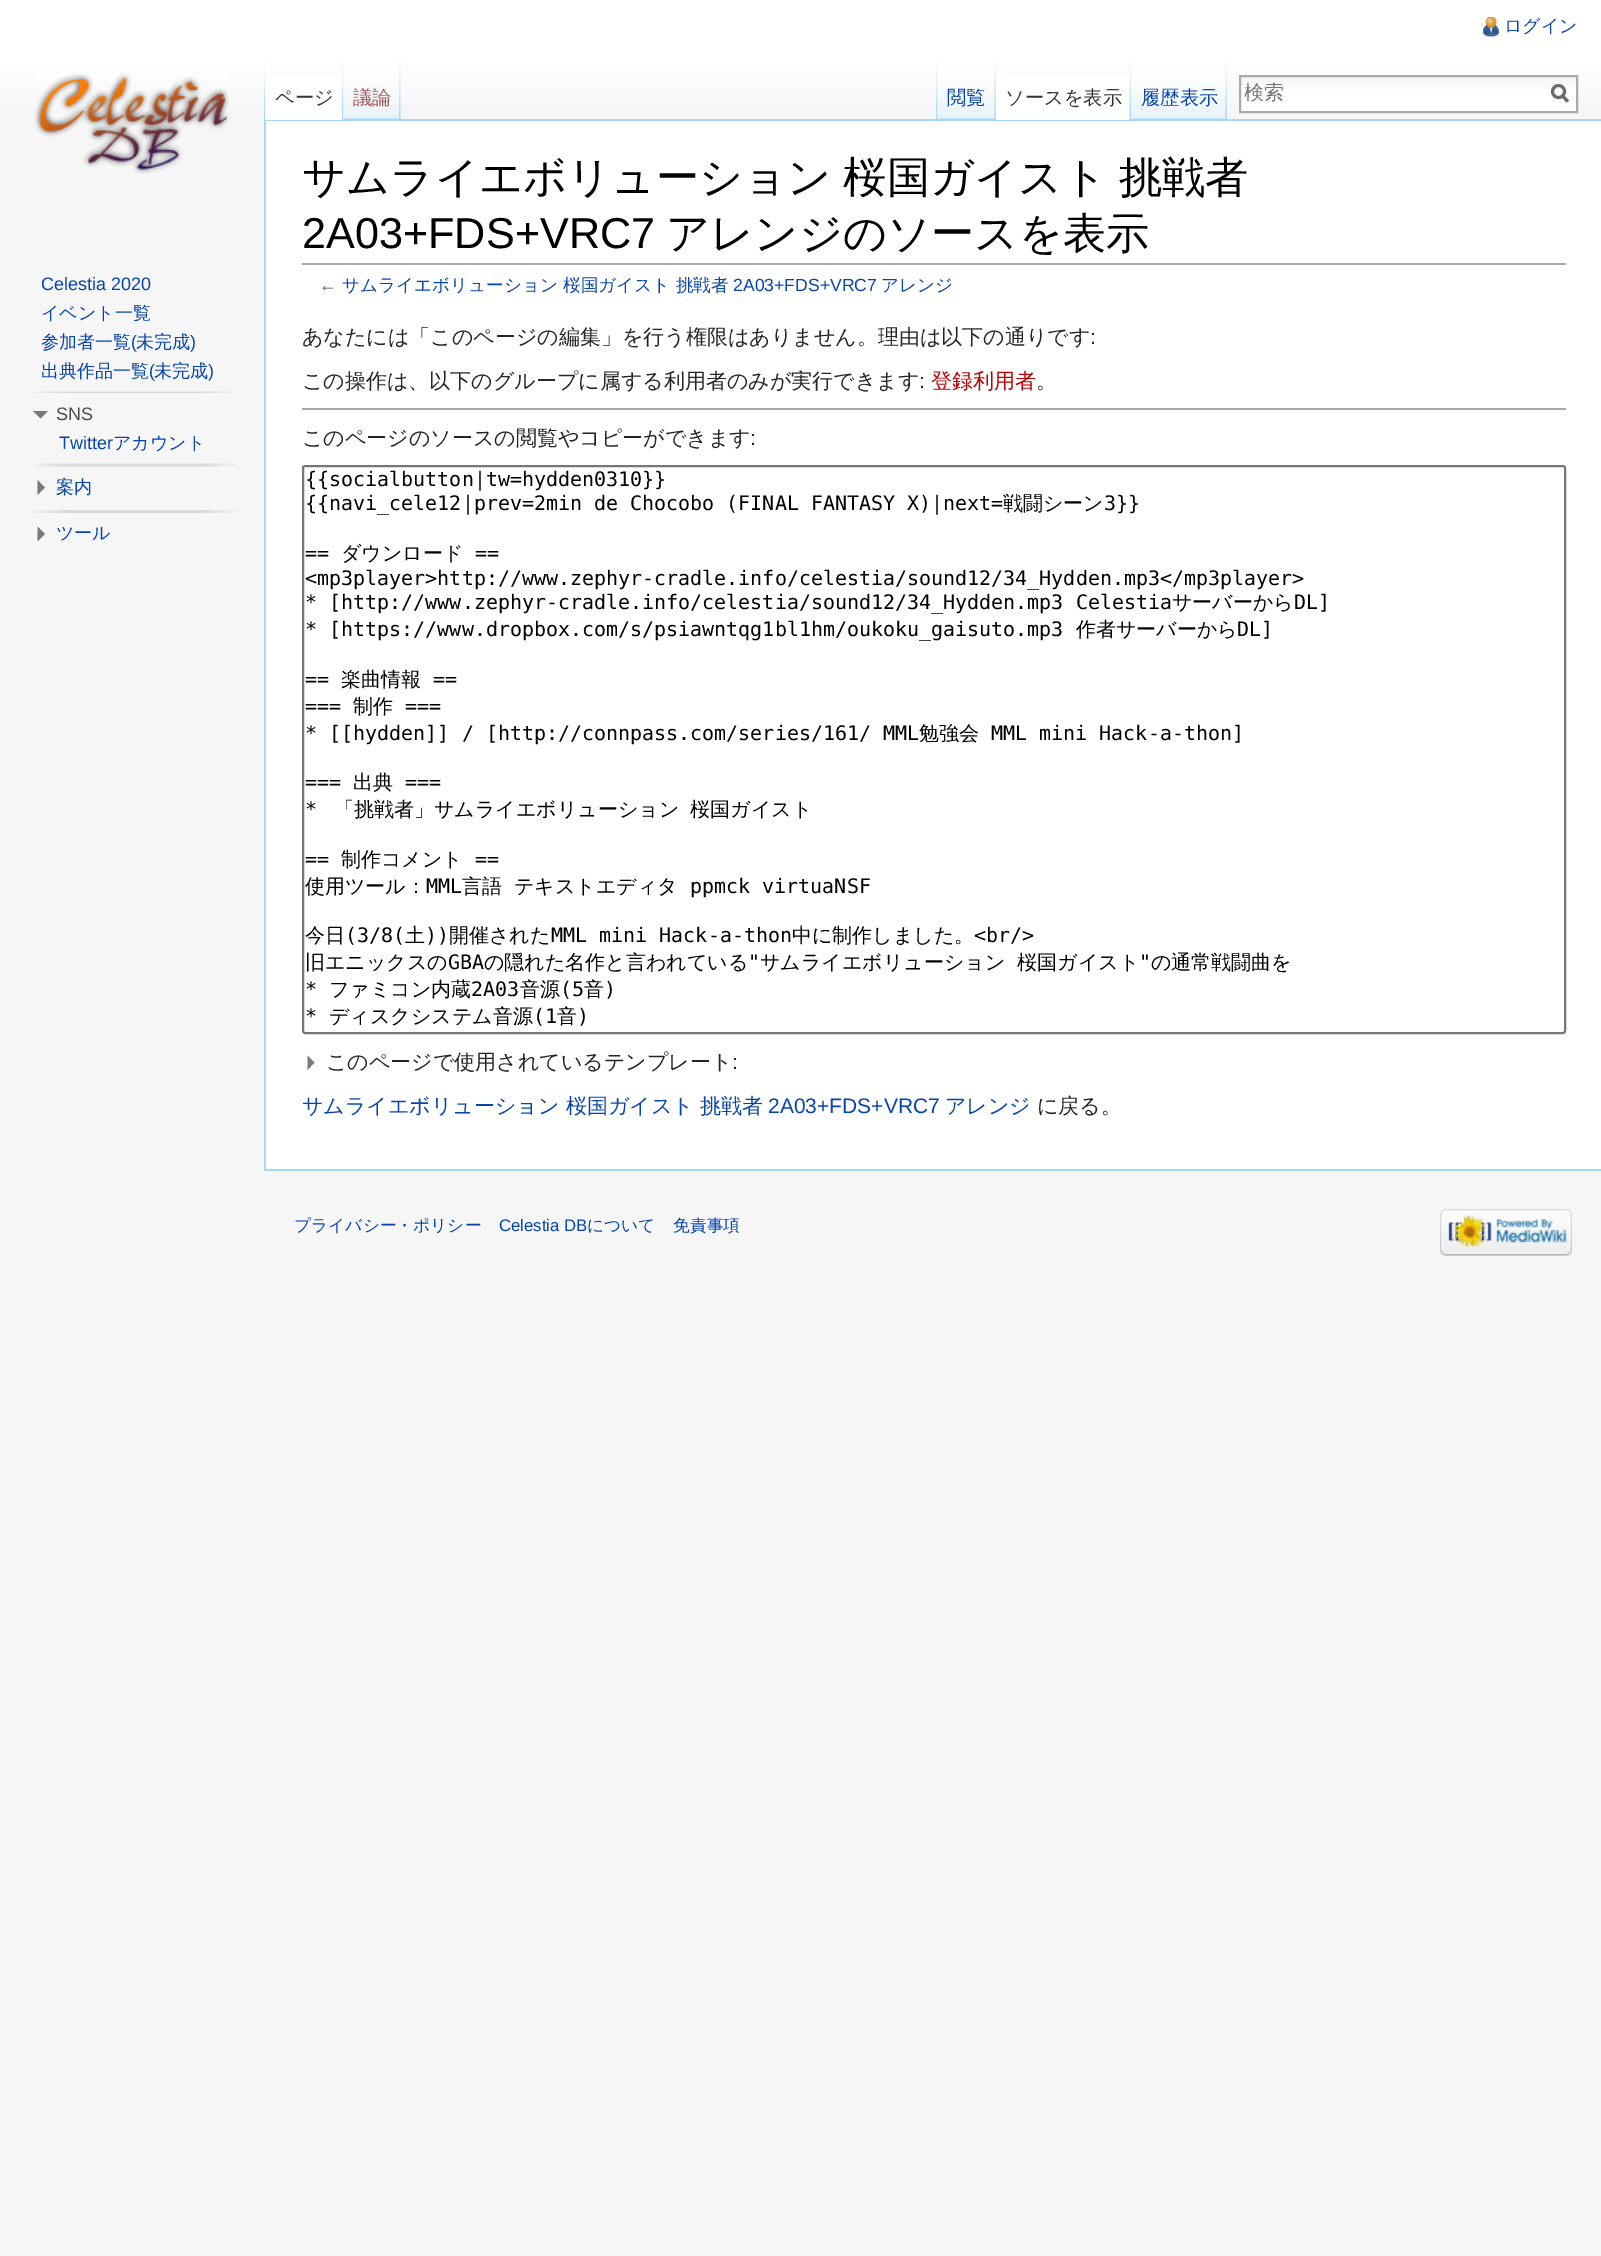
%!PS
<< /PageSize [1601 2256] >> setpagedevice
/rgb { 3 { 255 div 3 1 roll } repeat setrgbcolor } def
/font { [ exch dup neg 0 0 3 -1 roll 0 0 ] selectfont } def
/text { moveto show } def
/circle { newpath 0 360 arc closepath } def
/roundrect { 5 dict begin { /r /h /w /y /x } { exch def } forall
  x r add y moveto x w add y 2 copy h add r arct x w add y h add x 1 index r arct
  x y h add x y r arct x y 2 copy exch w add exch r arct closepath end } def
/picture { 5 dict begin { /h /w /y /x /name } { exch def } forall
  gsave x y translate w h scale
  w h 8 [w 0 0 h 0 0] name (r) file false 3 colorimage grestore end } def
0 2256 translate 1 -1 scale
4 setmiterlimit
246 246 246 rgb
0 0 1601 2256 rectfill
gsave 0 0 moveto 1601 0 rlineto 0 103 rlineto -1601 0 rlineto closepath clip newpath
<< /ShadingType 2 /ColorSpace /DeviceRGB /Coords [801 0 801 120] /Extend [true true] /Function << /FunctionType 3 /Domain [0 1] /Functions [<< /FunctionType 2 /Domain [0 1] /C0 [1 1 1] /C1 [1 1 1] /N 1 >> << /FunctionType 2 /Domain [0 1] /C0 [1 1 1] /C1 [0.965 0.965 0.965] /N 1 >>] /Bounds [0.5] /Encode [0 1 0 1] >> >> shfill grestore
(img_01.rgb) 1482 17 18 21 picture
(img_02.rgb) 264 60 1 59 picture
167 215 249 rgb
264 119 1337 2 rectfill
264 1169 1337 2 rectfill
264 119 2 1051 rectfill
255 255 255 rgb
265 77 79 43 rectfill
(img_03.rgb) 342 61 2 59 picture
243 243 243 rgb
400 60 1 60 rectfill
(img_04.rgb) 343 60 58 60 picture
(img_05.rgb) 399 61 2 59 picture
(img_06.rgb) 936 60 2 59 picture
(img_07.rgb) 937 60 59 60 picture
(img_08.rgb) 994 61 2 58 picture
255 255 255 rgb
996 77 135 43 rectfill
(img_09.rgb) 1129 61 2 59 picture
(img_10.rgb) 1131 60 96 60 picture
(img_08.rgb) 1225 61 2 58 picture
1241 89 335 22 rectfill
(img_11.rgb) 1241 77 335 12 picture
170 170 170 rgb
2 setlinewidth
1240 76 337 36 rectstroke
108 108 108 rgb
3 setlinewidth
1568 101.5 moveto -6 -6 rlineto stroke
1558.5 91.5 6 circle stroke
(img_12.rgb) 34 73 196 101 picture
(img_13.rgb) 32 391 204 2 picture
121 121 121 rgb
48 411 moveto -7.5 7.5 rlineto -7.5 -7.5 rlineto closepath fill
(img_14.rgb) 32 463 204 4 picture
37.5 480 moveto 7.5 7.5 rlineto -7.5 7.5 rlineto closepath fill
(img_15.rgb) 32 510 204 3 picture
37.5 526.5 moveto 7.5 7.5 rlineto -7.5 7.5 rlineto closepath fill
255 255 255 rgb
266 121 1335 1048 rectfill
170 170 170 rgb
302 263 1264 2 rectfill
302 408 1264 2 rectfill
118 118 118 rgb
2 setlinewidth
303 466 1262 567 2 roundrect stroke
121 121 121 rgb
307.5 1055.5 moveto 0 14.5 rlineto 7 -7.5 rlineto closepath fill
(img_16.rgb) 1440 1209 132 47 picture
/WenQuanYiZenHei-Medium 18 font
6 69 173 rgb
(ログイン) 1504 32 text
/WenQuanYiZenHei-Medium 19.25 font
51 51 51 rgb
(ページ) 275 104 text
165 88 88 rgb
(議論) 353 104 text
6 69 173 rgb
(閲覧) 947 104 text
51 51 51 rgb
(ソースを表示) 1005 104 text
6 69 173 rgb
(履歴表示) 1141 104 text
/WenQuanYiZenHei-Medium 20 font
117 117 117 rgb
(検索) 1244 99 text
/LiberationSans-Regular 18 font
6 69 173 rgb
(Celestia 2020) 41 290 text
/WenQuanYiZenHei-Medium 18 font
(イベント一覧) 41 319 text
(参加者一覧) 41 348 text
/LiberationSans-Regular 18 font
(\() 131 348 text
/WenQuanYiZenHei-Medium 18 font
(未完成) 136 348 text
/LiberationSans-Regular 18 font
(\)) 190 348 text
/WenQuanYiZenHei-Medium 18 font
(出典作品一覧) 41 377 text
/LiberationSans-Regular 18 font
(\() 149 377 text
/WenQuanYiZenHei-Medium 18 font
(未完成) 154 377 text
/LiberationSans-Regular 18 font
(\)) 208 377 text
77 77 77 rgb
(SNS) 56 420 text
6 69 173 rgb
(Twitter) 59 449 text
/WenQuanYiZenHei-Medium 18 font
(アカウント) 113 449 text
(案内) 56 493 text
(ツール) 56 539 text
/WenQuanYiZenHei-Medium 43.2 font
0 0 0 rgb
302 192 moveto -1 0 32 (サムライエボリューション 桜国ガイスト 挑戦者) widthshow
/LiberationSans-Regular 43.2 font
(2A03+FDS+VRC7) 302 248 text
/WenQuanYiZenHei-Medium 43.2 font
(アレンジのソースを表示) 666 248 text
/LiberationSans-Regular 17.6 font
84 84 84 rgb
(←) 319 291 text
/WenQuanYiZenHei-Medium 17.6 font
6 69 173 rgb
(サムライエボリューション 桜国ガイスト 挑戦者) 342 291 text
/LiberationSans-Regular 17.6 font
(2A03+FDS+VRC7) 733 291 text
/WenQuanYiZenHei-Medium 17.6 font
(アレンジ) 881 291 text
/WenQuanYiZenHei-Medium 21 font
37 37 37 rgb
(あなたには「このページの編集」を行う権限はありません。理由は以下の通りです) 302 344 text
/LiberationSans-Regular 21 font
(:) 1090 344 text
/WenQuanYiZenHei-Medium 21 font
(この操作は、以下のグループに属する利用者のみが実行できます) 302 388 text
/LiberationSans-Regular 21 font
(:) 919 388 text
/WenQuanYiZenHei-Medium 21 font
186 0 0 rgb
(登録利用者) 931 388 text
37 37 37 rgb
(。) 1036 388 text
(このページのソースの閲覧やコピーができます) 302 445 text
/LiberationSans-Regular 21 font
(:) 750 445 text
/DejaVuSansMono-Regular 20 font
0 0 0 rgb
({{socialbutton|tw=hydden0310}}) 305 486 text
({{navi_cele12|prev=2min de Chocobo \(FINAL FANTASY X\)|next=) 305 510 text
/WenQuanYiZenHei-Medium 20 font
(戦闘シーン) 1003 510 text
/DejaVuSansMono-Regular 20 font
(3}}) 1104 510 text
(==) 305 560 text
/WenQuanYiZenHei-Medium 20 font
(ダウンロード) 341 560 text
/DejaVuSansMono-Regular 20 font
(==) 475 560 text
(<mp3player>http://www.zephyr-cradle.info/celestia/sound12/34_Hydden.mp3</mp3player>) 305 585 text
(* [http://www.zephyr-cradle.info/celestia/sound12/34_Hydden.mp3 Celestia) 305 609 text
/WenQuanYiZenHei-Medium 20 font
(サーバーから) 1172 609 text
/DejaVuSansMono-Regular 20 font
(DL]) 1294 609 text
(* [https://www.dropbox.com/s/psiawntqg1bl1hm/oukoku_gaisuto.mp3) 305 636 text
/WenQuanYiZenHei-Medium 20 font
(作者サーバーから) 1076 636 text
/DejaVuSansMono-Regular 20 font
(DL]) 1237 636 text
(==) 305 686 text
/WenQuanYiZenHei-Medium 20 font
(楽曲情報) 341 686 text
/DejaVuSansMono-Regular 20 font
(==) 433 686 text
(===) 305 713 text
/WenQuanYiZenHei-Medium 20 font
(制作) 353 713 text
/DejaVuSansMono-Regular 20 font
(===) 405 713 text
(* [[hydden]] / [http://connpass.com/series/161/ MML) 305 740 text
/WenQuanYiZenHei-Medium 20 font
(勉強会) 919 740 text
/DejaVuSansMono-Regular 20 font
(MML mini Hack-a-thon]) 991 740 text
(===) 305 789 text
/WenQuanYiZenHei-Medium 20 font
(出典) 353 789 text
/DejaVuSansMono-Regular 20 font
(===) 405 789 text
(*) 305 816 text
/WenQuanYiZenHei-Medium 20 font
334 816 moveto 5 0 32 (「挑戦者」サムライエボリューション 桜国ガイスト) widthshow
/DejaVuSansMono-Regular 20 font
(==) 305 866 text
/WenQuanYiZenHei-Medium 20 font
(制作コメント) 341 866 text
/DejaVuSansMono-Regular 20 font
(==) 475 866 text
/WenQuanYiZenHei-Medium 20 font
(使用ツール：) 305 893 text
/DejaVuSansMono-Regular 20 font
(MML) 426 893 text
/WenQuanYiZenHei-Medium 20 font
(言語) 462 893 text
(テキストエディタ) 514 893 text
/DejaVuSansMono-Regular 20 font
(ppmck virtuaNSF) 690 893 text
/WenQuanYiZenHei-Medium 20 font
(今日) 305 942 text
/DejaVuSansMono-Regular 20 font
(\(3/8\() 345 942 text
/WenQuanYiZenHei-Medium 20 font
(土) 405 942 text
/DejaVuSansMono-Regular 20 font
(\)\)) 425 942 text
/WenQuanYiZenHei-Medium 20 font
(開催された) 449 942 text
/DejaVuSansMono-Regular 20 font
(MML mini Hack-a-thon) 551 942 text
/WenQuanYiZenHei-Medium 20 font
(中に制作しました。) 792 942 text
/DejaVuSansMono-Regular 20 font
(<br/>) 974 942 text
/WenQuanYiZenHei-Medium 20 font
(旧エニックスの) 305 969 text
/DejaVuSansMono-Regular 20 font
(GBA) 448 969 text
/WenQuanYiZenHei-Medium 20 font
(の隠れた名作と言われている) 484 969 text
/DejaVuSansMono-Regular 20 font
(") 748 969 text
/WenQuanYiZenHei-Medium 20 font
760 969 moveto 6 0 32 (サムライエボリューション 桜国ガイスト) widthshow
/DejaVuSansMono-Regular 20 font
(") 1139 969 text
/WenQuanYiZenHei-Medium 20 font
(の通常戦闘曲を) 1151 969 text
/DejaVuSansMono-Regular 20 font
(*) 305 996 text
/WenQuanYiZenHei-Medium 20 font
(ファミコン内蔵) 329 996 text
/DejaVuSansMono-Regular 20 font
(2A03) 471 996 text
/WenQuanYiZenHei-Medium 20 font
(音源) 520 996 text
/DejaVuSansMono-Regular 20 font
(\(5) 560 996 text
/WenQuanYiZenHei-Medium 20 font
(音) 584 996 text
/DejaVuSansMono-Regular 20 font
(\)) 604 996 text
(*) 305 1023 text
/WenQuanYiZenHei-Medium 20 font
(ディスクシステム音源) 329 1023 text
/DejaVuSansMono-Regular 20 font
(\(1) 533 1023 text
/WenQuanYiZenHei-Medium 20 font
(音) 557 1023 text
/DejaVuSansMono-Regular 20 font
(\)) 577 1023 text
/WenQuanYiZenHei-Medium 21 font
37 37 37 rgb
(このページで使用されているテンプレート) 326 1069 text
/LiberationSans-Regular 21 font
(:) 732 1069 text
/WenQuanYiZenHei-Medium 21 font
6 69 173 rgb
(サムライエボリューション 桜国ガイスト 挑戦者) 302 1113 text
/LiberationSans-Regular 21 font
(2A03+FDS+VRC7) 768 1113 text
/WenQuanYiZenHei-Medium 21 font
(アレンジ) 945 1113 text
37 37 37 rgb
(に戻る。) 1037 1113 text
/WenQuanYiZenHei-Medium 16.75 font
6 69 173 rgb
(プライバシー・ポリシー) 294 1231 text
/LiberationSans-Regular 16.75 font
(Celestia DB) 499 1231 text
/WenQuanYiZenHei-Medium 16.75 font
(について) 587 1231 text
(免責事項) 673 1231 text
showpage
